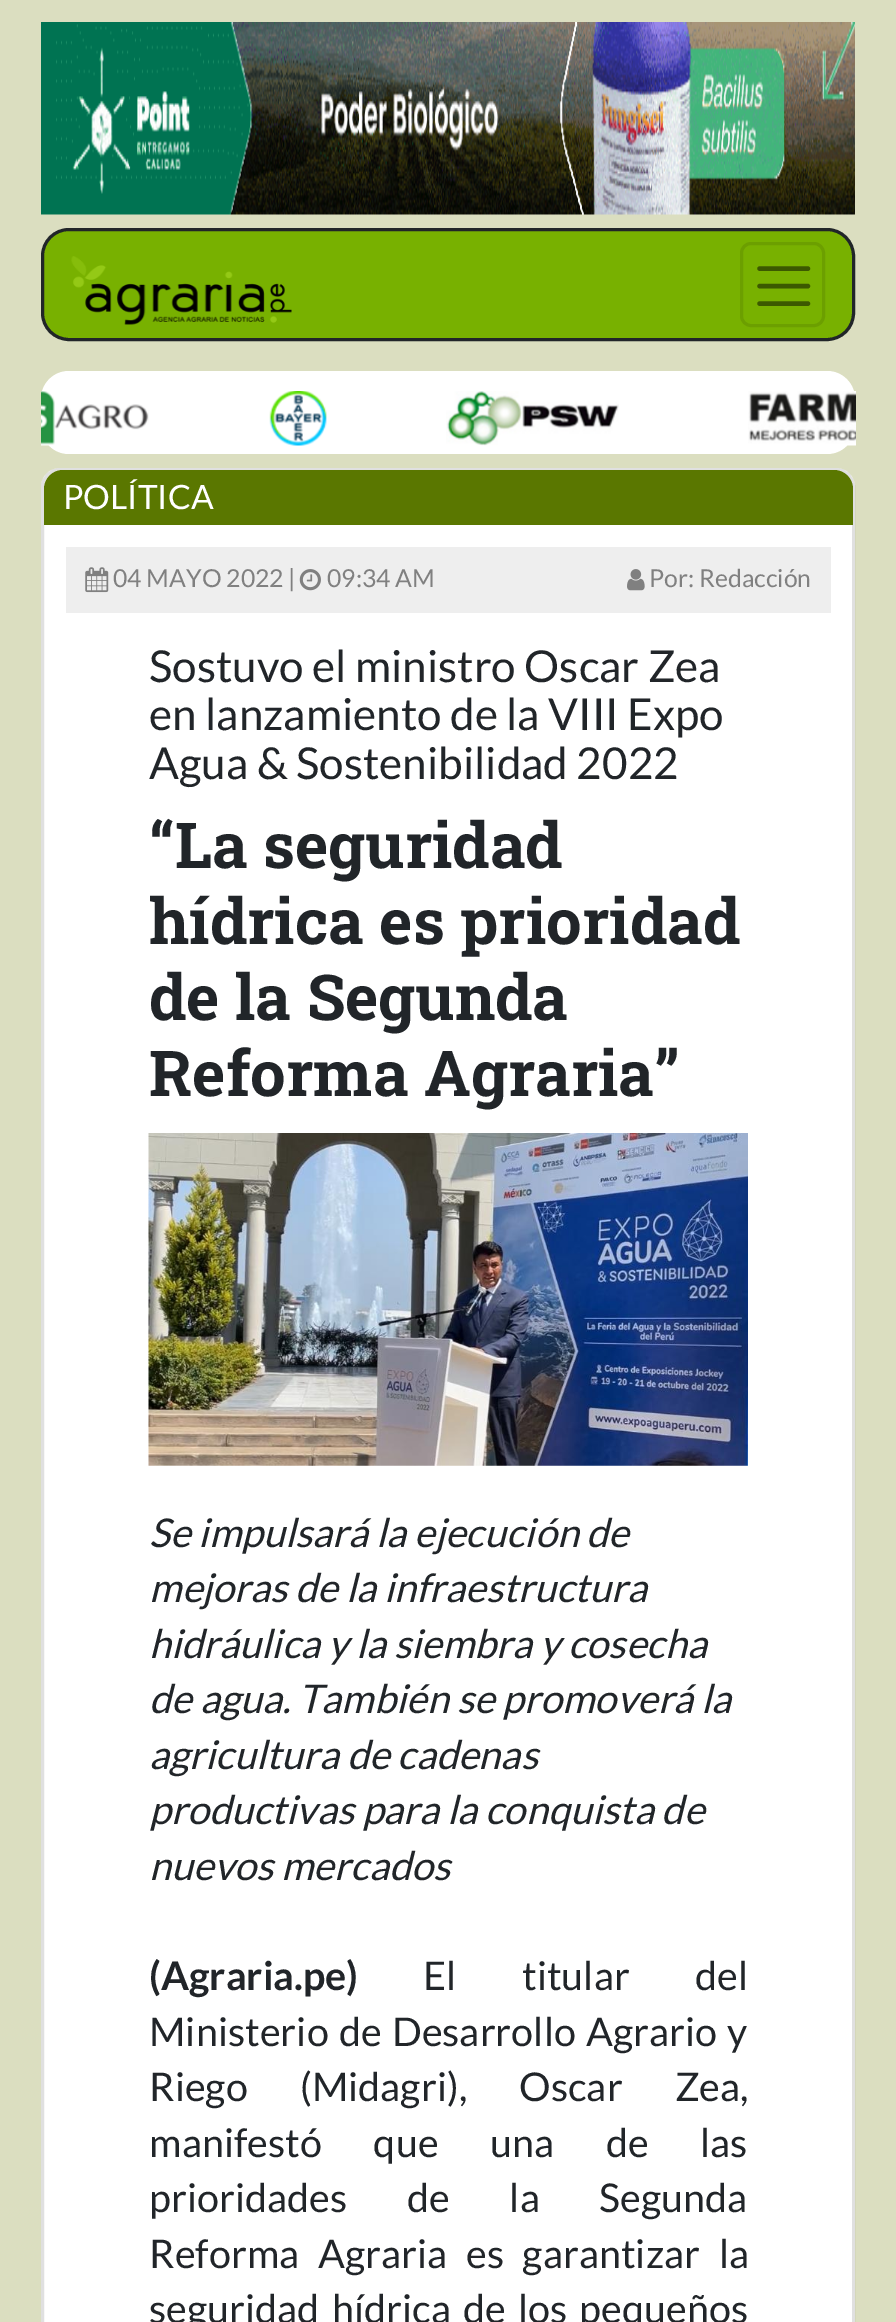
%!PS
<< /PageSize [896 2322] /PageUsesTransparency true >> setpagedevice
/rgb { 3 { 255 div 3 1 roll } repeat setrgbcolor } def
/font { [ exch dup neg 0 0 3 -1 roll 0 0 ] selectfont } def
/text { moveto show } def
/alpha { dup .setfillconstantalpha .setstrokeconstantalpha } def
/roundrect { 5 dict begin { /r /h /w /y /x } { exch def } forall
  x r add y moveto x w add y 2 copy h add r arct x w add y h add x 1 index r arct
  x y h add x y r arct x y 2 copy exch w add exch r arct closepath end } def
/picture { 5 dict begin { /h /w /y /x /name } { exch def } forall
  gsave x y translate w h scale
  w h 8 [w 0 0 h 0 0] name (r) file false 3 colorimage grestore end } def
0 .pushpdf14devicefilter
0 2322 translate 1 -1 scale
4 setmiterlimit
219 222 192 rgb
0 0 896 2322 rectfill
(img_01.rgb) 41 22 814 193 picture
120 177 0 rgb
42.5 229.5 811 110 26.5 roundrect gsave fill grestore
33 37 41 rgb
3 setlinewidth
stroke
(img_02.rgb) 71 256 221 69 picture
108 159 0 rgb
741.5 243.5 82 82 9.5 roundrect stroke
60 89 0 rgb
4.4 setlinewidth
1 setlinecap
759.5 268.5 moveto 48.5 0 rlineto 759.5 286 moveto 48.5 0 rlineto 759.5 303.5 moveto 48.5 0 rlineto stroke
255 255 255 rgb
41 371 814 83 28 roundrect fill
(img_03.rgb) 41 391 108 55 picture
(img_04.rgb) 269 391 58 55 picture
(img_05.rgb) 446 391 173 55 picture
(img_06.rgb) 748 391 108 55 picture
41 468 814 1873 19 roundrect fill
0.12 alpha
0 0 0 rgb
3 setlinewidth
0 setlinecap
42.5 469.5 811 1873 17.5 roundrect stroke
1 alpha
90 119 0 rgb
63 470 moveto 771 0 rlineto 10.5 0 19 8.5 19 19 rcurveto 0 36 rlineto -809 0 rlineto 0 -36 rlineto 0 -10.5 8.5 -19 19 -19 rcurveto closepath fill
238 238 238 rgb
66 547 765 66 rectfill
(img_07.rgb) 85 567 24 26 picture
(img_08.rgb) 299 569 22 22 picture
(img_09.rgb) 627 569 18 22 picture
(img_10.rgb) 148 1133 600 333 picture
/Lato-Regular 33.5 font
255 255 255 rgb
(POLÍTICA) 63 509 text
/Lato-Regular 24.75 font
128 128 128 rgb
(04 MAYO 2022 |) 113 587 text
(09:34 AM) 327 587 text
(Por: Redacción) 649 587 text
/Lato-Regular 44 font
33 37 41 rgb
(Sostuvo el ministro Oscar Zea) 149 682 text
(en lanzamiento de la VIII Expo) 149 730 text
(Agua & Sostenibilidad 2022) 149 779 text
/RobotoSlab-Bold 63.25 font
(“La seguridad) 149 868 text
(hídrica es prioridad) 149 944 text
(de la Segunda) 149 1020 text
(Reforma Agraria”) 149 1096 text
/Lato-Italic 39.6 font
(Se impulsará la ejecución de) 149 1547 text
(mejoras de la infraestructura) 149 1602 text
(hidráulica y la siembra y cosecha) 149 1658 text
(de agua. También se promoverá la) 149 1713 text
(agricultura de cadenas) 149 1769 text
(productivas para la conquista de) 149 1824 text
(nuevos mercados) 149 1880 text
/Lato-Bold 39.6 font
(\(Agraria.pe\)) 149 1990 text
/Lato-Regular 39.6 font
423 1990 moveto 58 0 32 (El titular del) widthshow
149 2046 moveto 2.5 0 32 (Ministerio de Desarrollo Agrario y) widthshow
149 2101 moveto 44.5 0 32 (Riego \(Midagri\), Oscar Zea,) widthshow
149 2157 moveto 44 0 32 (manifestó que una de las) widthshow
149 2212 moveto 52 0 32 (prioridades de la Segunda) widthshow
149 2268 moveto 11 0 32 (Reforma Agraria es garantizar la) widthshow
149 2323 moveto 4.5 0 32 (seguridad hídrica de los pequeños) widthshow
.poppdf14devicefilter showpage
